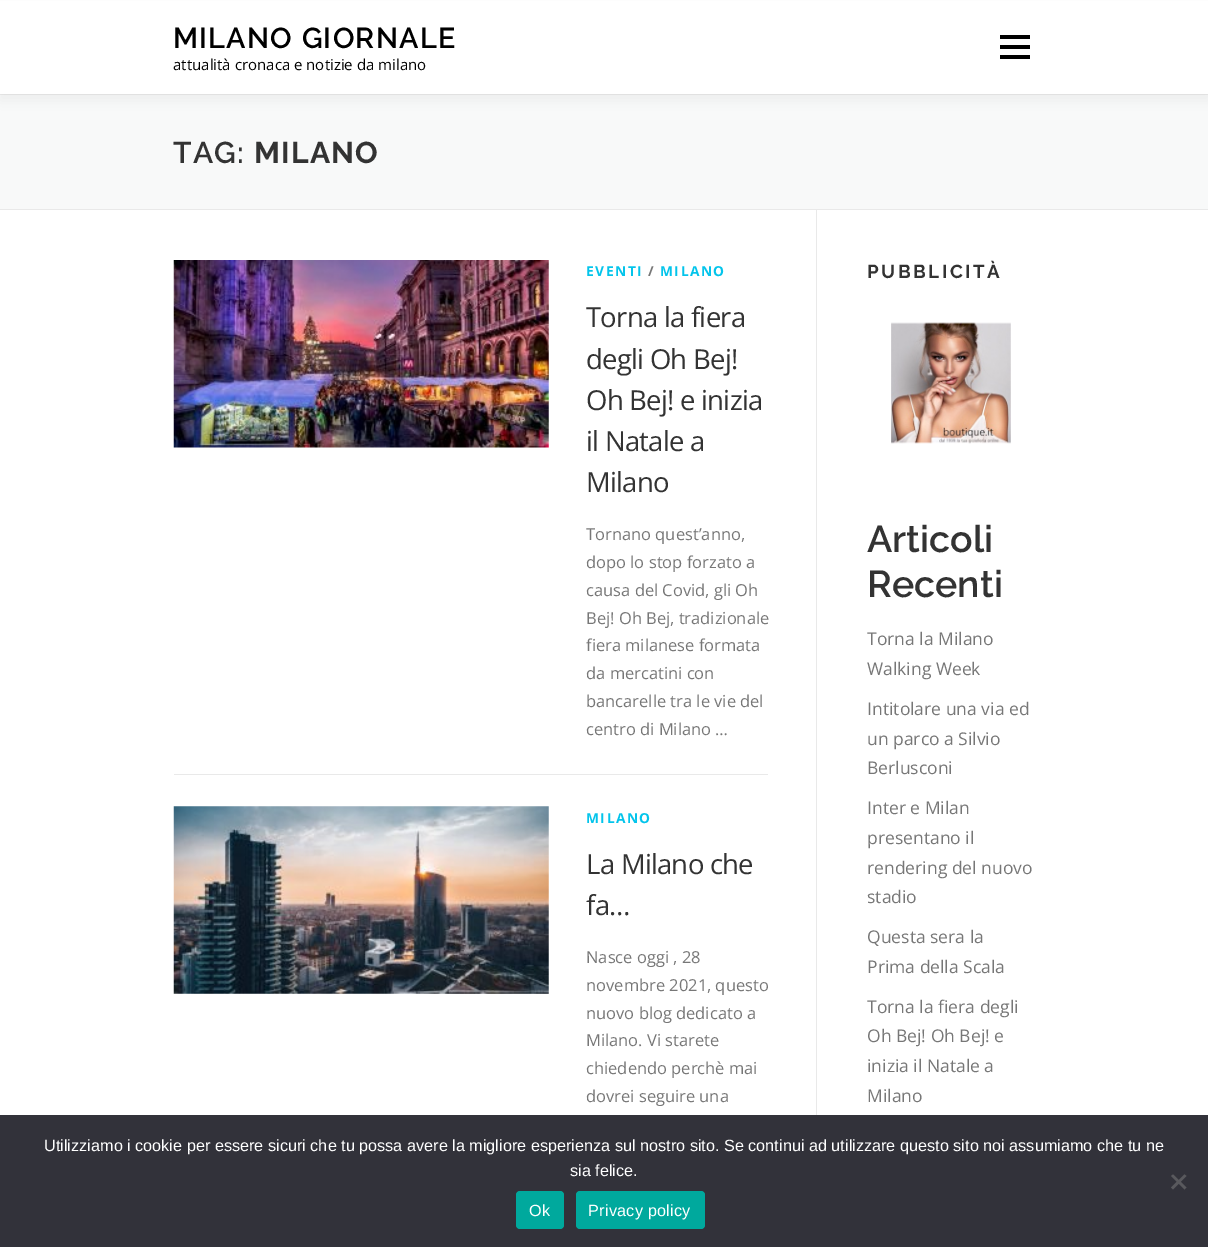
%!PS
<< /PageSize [1208 1247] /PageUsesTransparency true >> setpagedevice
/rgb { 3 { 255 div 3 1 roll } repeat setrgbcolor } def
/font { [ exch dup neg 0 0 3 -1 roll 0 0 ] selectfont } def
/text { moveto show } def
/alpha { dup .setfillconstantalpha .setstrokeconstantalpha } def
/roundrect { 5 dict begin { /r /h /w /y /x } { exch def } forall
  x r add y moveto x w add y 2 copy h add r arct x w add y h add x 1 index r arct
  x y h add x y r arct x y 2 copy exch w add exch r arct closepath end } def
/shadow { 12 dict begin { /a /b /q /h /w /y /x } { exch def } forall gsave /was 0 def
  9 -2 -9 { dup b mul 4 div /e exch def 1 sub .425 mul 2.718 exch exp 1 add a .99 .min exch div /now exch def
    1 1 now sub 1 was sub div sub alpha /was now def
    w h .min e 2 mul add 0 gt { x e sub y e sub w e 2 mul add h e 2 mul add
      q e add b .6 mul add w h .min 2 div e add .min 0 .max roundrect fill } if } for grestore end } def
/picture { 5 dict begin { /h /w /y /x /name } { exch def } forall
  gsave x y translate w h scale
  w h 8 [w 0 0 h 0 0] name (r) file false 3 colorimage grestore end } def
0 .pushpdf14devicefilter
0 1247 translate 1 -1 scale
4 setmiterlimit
255 255 255 rgb
0 0 1208 1247 rectfill
248 249 249 rgb
0 95 1208 114 rectfill
233 233 233 rgb
0 94 1208 1 rectfill
50 50 50 rgb
0 6 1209 94 0 6 0.06 shadow
255 255 255 rgb
0 1 1208 93 rectfill
0 0 0 rgb
1000 45 30 4 rectfill
1000 35 30 4 rectfill
1000 55 30 4 rectfill
233 233 233 rgb
0 209 1208 1 rectfill
816 210 1 905 rectfill
(img_01.rgb) 173 260 376 188 picture
174 774 594 1 rectfill
(img_02.rgb) 173 806 376 188 picture
(img_03.rgb) 891 322 120 122 picture
50 50 58 rgb
0 1115 1208 132 rectfill
89 89 93 rgb
1184.5 1174.5 moveto 2 1.5 rlineto -13.5 13.5 rlineto -2 -2 rlineto closepath fill
1171 1176 moveto 2 -1.5 rlineto 13.5 13 rlineto -2 2 rlineto closepath fill
0 169 157 rgb
516 1191 48 38 4 roundrect fill
576 1191 129 38 4 roundrect fill
/Raleway-SemiBold 28.75 font
0 0 0 rgb
173 48 moveto 1.25 0 (MILANO GIORNALE) ashow
/OpenSans-Regular 15 font
(attualità cronaca e notizie da milano) 173 70 text
/Raleway-SemiBold 30 font
51 51 51 rgb
173 163 moveto 1.25 0 (TAG:) ashow
/Raleway-Bold 30 font
254 163 moveto 1.25 0 (MILANO) ashow
/OpenSans-Bold 13.75 font
3 196 235 rgb
586 276 moveto 1.5 0 (EVENTI) ashow
119 119 119 rgb
648 276 moveto 1.5 0 (/) ashow
3 196 235 rgb
660 276 moveto 1.5 0 (MILANO) ashow
/OpenSans-Regular 27.5 font
51 51 51 rgb
586 327 moveto -0.75 0 (Torna la fiera) ashow
586 369 moveto -0.75 0 (degli Oh Bej!) ashow
586 410 moveto -0.75 0 (Oh Bej! e inizia) ashow
586 451 moveto -0.75 0 (il Natale a) ashow
586 492 moveto -0.75 0 (Milano) ashow
/OpenSans-Regular 16.5 font
119 119 119 rgb
(Tornano quest’anno,) 586 540 text
(dopo lo stop forzato a) 586 568 text
(causa del Covid, gli Oh) 586 596 text
(Bej! Oh Bej, tradizionale) 586 624 text
(fiera milanese formata) 586 651 text
(da mercatini con) 586 679 text
(bancarelle tra le vie del) 586 707 text
(centro di Milano …) 586 735 text
/OpenSans-Bold 13.75 font
3 196 235 rgb
586 823 moveto 1.5 0 (MILANO) ashow
/OpenSans-Regular 27.5 font
51 51 51 rgb
586 874 moveto -0.75 0 (La Milano che) ashow
586 915 moveto -0.75 0 (fa…) ashow
/OpenSans-Regular 16.5 font
119 119 119 rgb
(Nasce oggi , 28) 586 963 text
(novembre 2021, questo) 586 991 text
(nuovo blog dedicato a) 586 1019 text
(Milano. Vi starete) 586 1046 text
(chiedendo perchè mai) 586 1074 text
(dovrei seguire una) 586 1102 text
/Raleway-Bold 18.75 font
51 51 51 rgb
867 278 moveto 2.5 0 (PUBBLICITÀ) ashow
/Raleway-SemiBold 37.5 font
(Articoli) 867 552 text
(Recenti) 867 597 text
/OpenSans-Regular 17.5 font
119 119 119 rgb
(Torna la Milano) 867 645 text
(Walking Week) 867 675 text
(Intitolare una via ed) 867 715 text
(un parco a Silvio) 867 745 text
(Berlusconi) 867 774 text
(Inter e Milan) 867 814 text
(presentano il) 867 844 text
(rendering del nuovo) 867 874 text
(stadio) 867 903 text
(Questa sera la) 867 943 text
(Prima della Scala) 867 973 text
(Torna la fiera degli) 867 1013 text
(Oh Bej! Oh Bej! e) 867 1042 text
(inizia il Natale a) 867 1072 text
(Milano) 867 1102 text
/LiberationSans-Regular 16.25 font
255 255 255 rgb
(Utilizziamo i cookie per essere sicuri che tu possa avere la migliore esperienza sul nostro sito. Se continui ad utilizzare questo sito noi assumiamo che tu ne) 44 1151 text
(sia felice.) 570 1176 text
529 1216 moveto 0.25 0 (Ok) ashow
588 1216 moveto 0.25 0 (Privacy policy) ashow
.poppdf14devicefilter showpage
